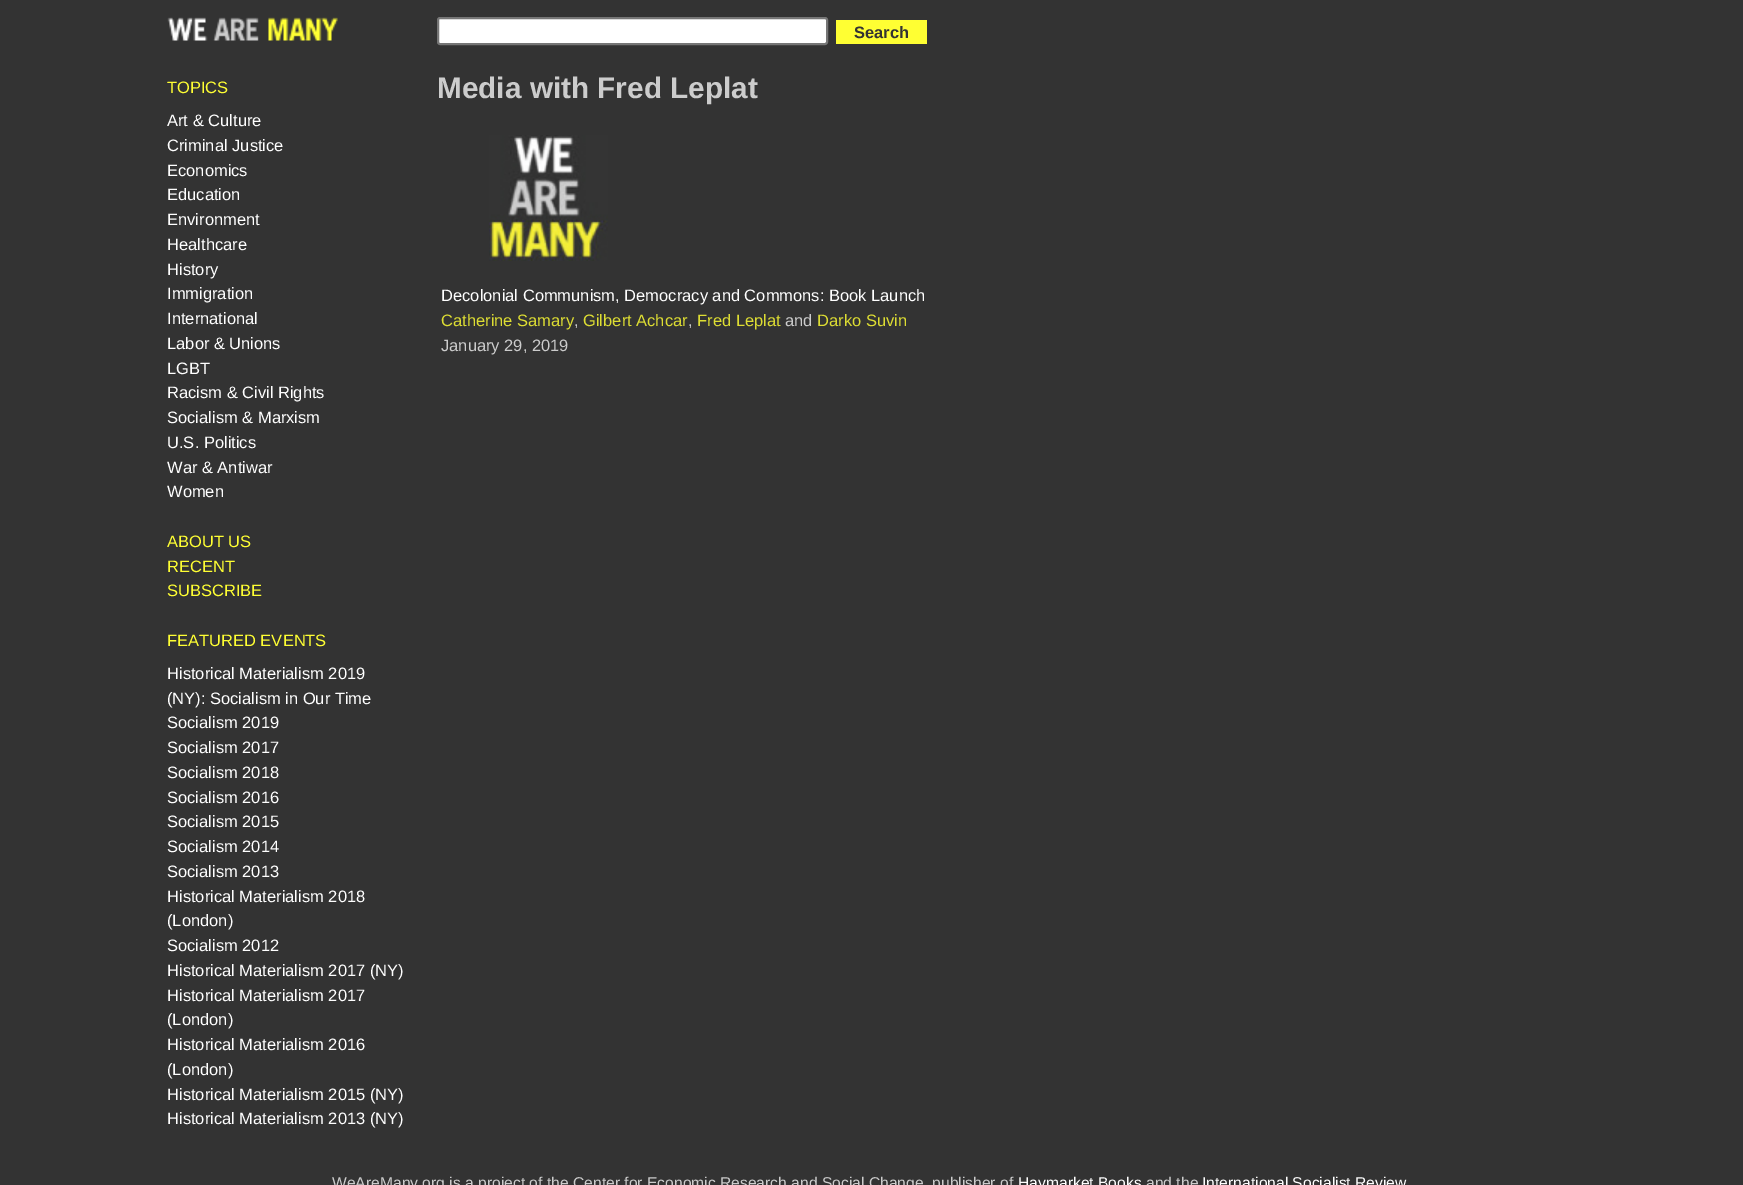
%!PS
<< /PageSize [1743 1185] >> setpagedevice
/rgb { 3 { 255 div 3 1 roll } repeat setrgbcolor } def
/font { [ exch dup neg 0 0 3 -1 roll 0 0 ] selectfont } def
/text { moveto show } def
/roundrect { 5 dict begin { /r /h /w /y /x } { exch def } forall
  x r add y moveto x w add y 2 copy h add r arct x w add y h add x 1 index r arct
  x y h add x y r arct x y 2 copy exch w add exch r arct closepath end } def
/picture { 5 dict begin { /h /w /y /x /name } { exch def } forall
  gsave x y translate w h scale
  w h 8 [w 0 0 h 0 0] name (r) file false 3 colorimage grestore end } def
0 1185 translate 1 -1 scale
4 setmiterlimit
51 51 51 rgb
0 0 1743 1185 rectfill
(img_01.rgb) 167 17 171 24 picture
255 255 255 rgb
438 18 389 26 2 roundrect gsave fill grestore
118 118 118 rgb
2 setlinewidth
stroke
255 255 51 rgb
836 20 91 24 rectfill
(img_02.rgb) 489 135 119 126 picture
/LiberationSans-Bold 16.5 font
51 51 51 rgb
(Search) 854 38 text
/LiberationSans-Regular 16.5 font
255 255 51 rgb
(TOPICS) 167 93 text
255 255 255 rgb
(Art & Culture) 167 126 text
(Criminal Justice) 167 151 text
(Economics) 167 176 text
(Education) 167 200 text
(Environment) 167 225 text
(Healthcare) 167 250 text
(History) 167 275 text
(Immigration) 167 299 text
(International) 167 324 text
(Labor & Unions) 167 349 text
(LGBT) 167 374 text
(Racism & Civil Rights) 167 398 text
(Socialism & Marxism) 167 423 text
(U.S. Politics) 167 448 text
(War & Antiwar) 167 473 text
(Women) 167 497 text
255 255 51 rgb
(ABOUT US) 167 547 text
(RECENT) 167 572 text
(SUBSCRIBE) 167 596 text
(FEATURED EVENTS) 167 646 text
255 255 255 rgb
(Historical Materialism 2019) 167 679 text
(\(NY\): Socialism in Our Time) 167 704 text
(Socialism 2019) 167 728 text
(Socialism 2017) 167 753 text
(Socialism 2018) 167 778 text
(Socialism 2016) 167 803 text
(Socialism 2015) 167 827 text
(Socialism 2014) 167 852 text
(Socialism 2013) 167 877 text
(Historical Materialism 2018) 167 902 text
(\(London\)) 167 926 text
(Socialism 2012) 167 951 text
(Historical Materialism 2017 \(NY\)) 167 976 text
(Historical Materialism 2017) 167 1001 text
(\(London\)) 167 1025 text
(Historical Materialism 2016) 167 1050 text
(\(London\)) 167 1075 text
(Historical Materialism 2015 \(NY\)) 167 1100 text
(Historical Materialism 2013 \(NY\)) 167 1124 text
/LiberationSans-Bold 29.75 font
204 204 204 rgb
(Media with Fred Leplat) 437 98 text
/LiberationSans-Regular 16.5 font
255 255 255 rgb
(Decolonial Communism, Democracy and Commons: Book Launch) 441 301 text
221 221 51 rgb
(Catherine Samary) 441 326 text
204 204 204 rgb
(,) 574 326 text
221 221 51 rgb
(Gilbert Achcar) 583 326 text
204 204 204 rgb
(,) 688 326 text
221 221 51 rgb
(Fred Leplat) 697 326 text
204 204 204 rgb
(and) 785 326 text
221 221 51 rgb
(Darko Suvin) 817 326 text
204 204 204 rgb
(January 29, 2019) 441 351 text
/LiberationSans-Regular 15.65 font
(WeAreMany.org is a project of the Center for Economic Research and Social Change, publisher of) 332 1188 text
255 255 255 rgb
(Haymarket Books) 1018 1188 text
204 204 204 rgb
(and the) 1146 1188 text
255 255 255 rgb
(International Socialist Review) 1202 1188 text
showpage
